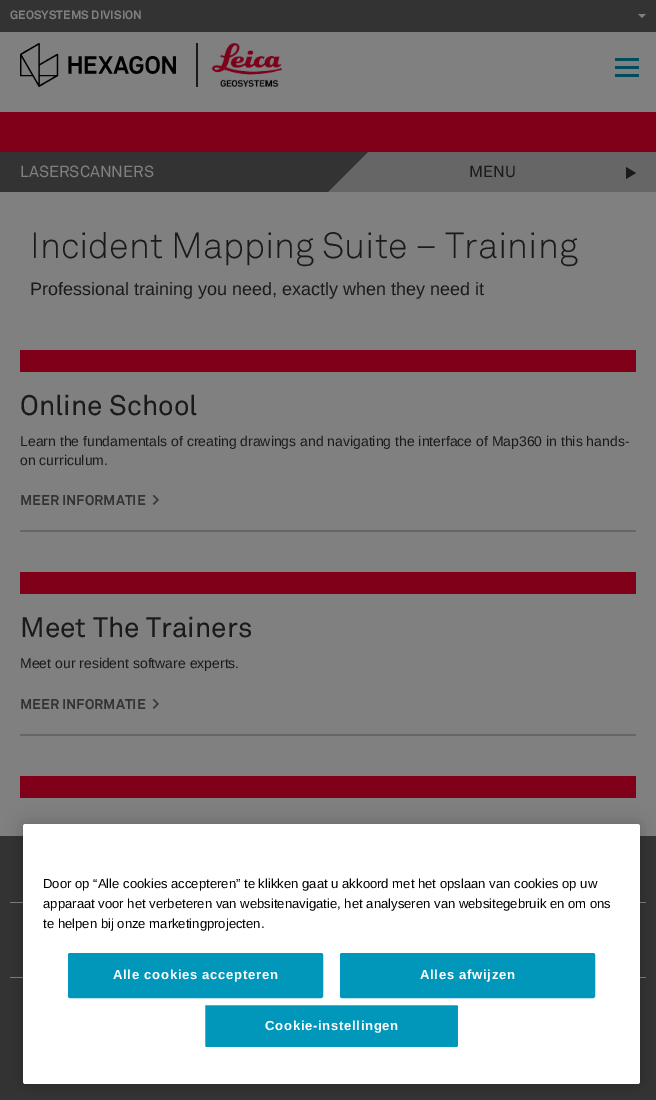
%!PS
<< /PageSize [656 1100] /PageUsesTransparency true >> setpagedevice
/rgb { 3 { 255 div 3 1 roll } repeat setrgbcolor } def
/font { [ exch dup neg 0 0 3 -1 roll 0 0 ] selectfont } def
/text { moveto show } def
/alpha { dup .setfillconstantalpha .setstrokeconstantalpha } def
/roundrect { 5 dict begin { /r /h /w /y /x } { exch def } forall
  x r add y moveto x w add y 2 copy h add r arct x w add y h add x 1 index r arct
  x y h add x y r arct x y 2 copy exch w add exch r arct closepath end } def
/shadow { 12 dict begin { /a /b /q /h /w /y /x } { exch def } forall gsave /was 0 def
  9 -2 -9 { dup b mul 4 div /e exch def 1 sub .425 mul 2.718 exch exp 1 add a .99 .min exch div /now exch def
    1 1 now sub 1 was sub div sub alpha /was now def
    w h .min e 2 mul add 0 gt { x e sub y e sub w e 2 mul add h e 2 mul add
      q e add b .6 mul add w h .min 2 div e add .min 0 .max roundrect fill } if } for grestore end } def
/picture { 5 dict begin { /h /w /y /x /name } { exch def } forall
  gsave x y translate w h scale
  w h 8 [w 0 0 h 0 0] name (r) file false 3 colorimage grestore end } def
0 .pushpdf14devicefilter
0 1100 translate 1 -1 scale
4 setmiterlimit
128 128 128 rgb
0 0 656 1100 rectfill
51 51 51 rgb
0 0 656 32 rectfill
128 128 128 rgb
638 14 moveto 8 0 rlineto -4 4 rlineto closepath fill
26 26 26 rgb
196 43 2 44 rectfill
(img_01.rgb) 20 43 156 44 picture
(img_02.rgb) 212 43 70 44 picture
0 76 93 rgb
615 58 24 3 rectfill
615 66 24 3 rectfill
615 74 24 3 rectfill
128 0 26 rgb
0 112 656 40 rectfill
51 51 51 rgb
0 152 328 40 rectfill
102 102 102 rgb
328 152 328 40 rectfill
51 51 51 rgb
328 192 moveto 0 -40 rlineto 40 0 rlineto closepath fill
26 26 26 rgb
626 179 moveto 0 -12 rlineto 10 6 rlineto closepath fill
102 102 102 rgb
20 530 616 2 rectfill
128 0 26 rgb
20 350 616 22 rectfill
102 102 102 rgb
20 734 616 2 rectfill
128 0 26 rgb
20 572 616 22 rectfill
20 776 616 22 rectfill
51 51 51 rgb
0 836 656 264 rectfill
128 128 128 rgb
10 902 636 1 rectfill
10 977 636 1 rectfill
0 0 0 rgb
23 824 617 260 2.5 9 0.2 shadow
255 255 255 rgb
23 824 617 260 2.5 roundrect fill
0 151 186 rgb
68.5 953.5 254 44 1.5 roundrect gsave fill grestore
stroke
340.5 953.5 254 44 1.5 roundrect gsave fill grestore
stroke
204.5 1004.5 254 43 1.5 roundrect gsave fill grestore
255 255 255 rgb
stroke
/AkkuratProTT-Bold 12 font
128 128 128 rgb
(GEOSYSTEMS DIVISION) 10 19 text
/AkkuratProTT-Regular 16 font
(LASERSCANNERS) 20 177 text
26 26 26 rgb
(MENU) 469 177 text
/AkkuratProTT-Light 36 font
(Incident Mapping Suite – Training) 30 258 text
/LiberationSans-Regular 18 font
(Professional training you need, exactly when they need it) 30 295 text
/AkkuratProTT-Regular 28 font
(Online School) 20 415 text
/LiberationSans-Regular 14 font
(Learn the fundamentals of creating drawings and navigating the interface of Map360 in this hands-) 20 446 text
(on curriculum.) 20 465 text
/AkkuratProTT-Bold 14 font
51 51 51 rgb
(MEER INFORMATIE) 20 505 text
/AkkuratProTT-Bold 16 font
(>) 152 505 text
/AkkuratProTT-Regular 28 font
26 26 26 rgb
(Meet The Trainers) 20 637 text
/LiberationSans-Regular 14 font
(Meet our resident software experts.) 20 668 text
/AkkuratProTT-Bold 14 font
51 51 51 rgb
(MEER INFORMATIE) 20 709 text
/AkkuratProTT-Bold 16 font
(>) 152 709 text
/LiberationSans-Regular 13.1 font
0 0 0 rgb
(Door op “Alle cookies accepteren” te klikken gaat u akkoord met het opslaan van cookies op uw) 43 888 text
(apparaat voor het verbeteren van websitenavigatie, het analyseren van websitegebruik en om ons) 43 908 text
(te helpen bij onze marketingprojecten.) 43 928 text
/LiberationSans-Bold 13.1 font
255 255 255 rgb
113 979 moveto 0.7 0 (Alle cookies accepteren) ashow
420 979 moveto 0.7 0 (Alles afwijzen) ashow
265 1030 moveto 0.7 0 (Cookie-instellingen) ashow
.poppdf14devicefilter showpage
